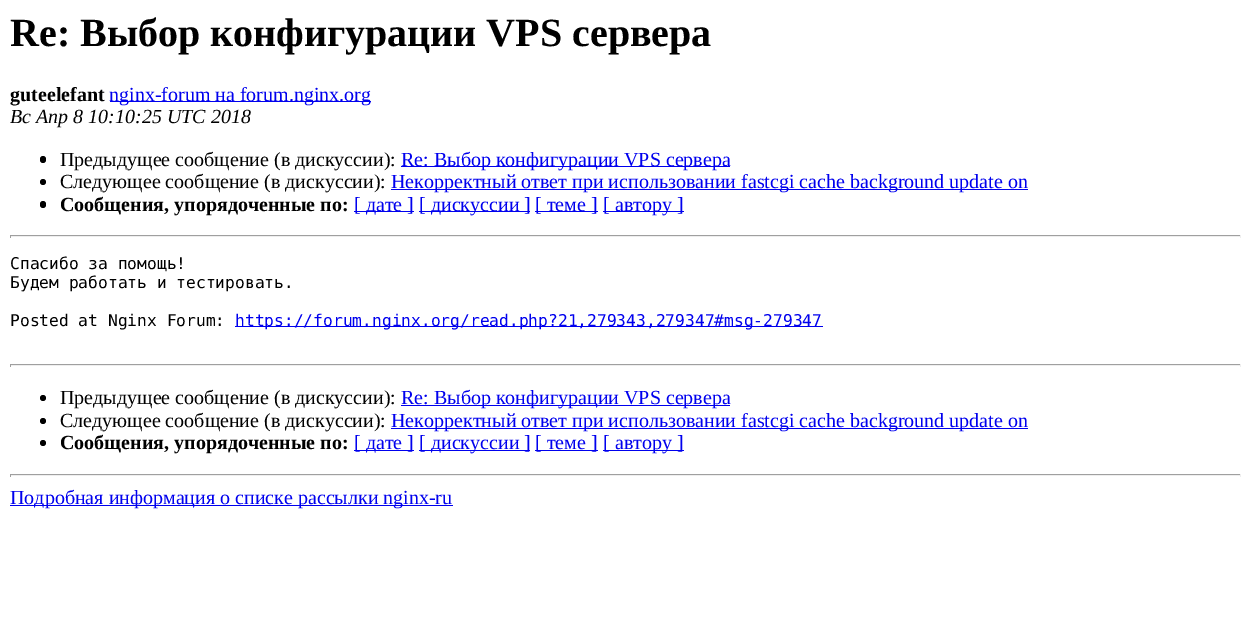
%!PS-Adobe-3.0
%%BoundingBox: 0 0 1251 620
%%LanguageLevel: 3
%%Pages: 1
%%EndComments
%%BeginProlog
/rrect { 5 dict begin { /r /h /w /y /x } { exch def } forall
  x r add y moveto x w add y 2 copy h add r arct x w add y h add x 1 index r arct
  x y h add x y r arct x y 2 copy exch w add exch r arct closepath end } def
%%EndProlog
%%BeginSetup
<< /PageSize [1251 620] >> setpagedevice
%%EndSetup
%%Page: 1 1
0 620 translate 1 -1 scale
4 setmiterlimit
1 setgray
0 0 1251 620 rectfill
0 0 0.933 setrgbcolor
110 101 261 1 rectfill
0 setgray
40 156 6 7 3 rrect fill
0 0 0.933 setrgbcolor
401 166 329 1 rectfill
0 setgray
newpath 43 182 3 0 360 arc closepath fill
0 0 0.933 setrgbcolor
391 189 637 1 rectfill
0 setgray
40 201 6 7 3 rrect fill
0 0 0.933 setrgbcolor
354 211 60 1 rectfill
419 211 111 1 rectfill
535 211 63 1 rectfill
603 211 81 1 rectfill
0.624 setgray
10 235 1231 1 rectfill
0.933 setgray
1240 235 1 3 rectfill
10 236 1231 1 rectfill
0.624 setgray
10 235 1 3 rectfill
0 0 0.933 setrgbcolor
235 326 588 1 rectfill
0.624 setgray
10 364 1231 1 rectfill
0.933 setgray
1240 364 1 3 rectfill
10 365 1231 1 rectfill
0.624 setgray
10 364 1 3 rectfill
0 setgray
newpath 43 398 3 0 360 arc closepath fill
0 0 0.933 setrgbcolor
401 405 329 1 rectfill
0 setgray
newpath 43 421 3 0 360 arc closepath fill
0 0 0.933 setrgbcolor
391 428 637 1 rectfill
0 setgray
newpath 43 443 3 0 360 arc closepath fill
0 0 0.933 setrgbcolor
354 450 60 1 rectfill
419 450 111 1 rectfill
535 450 63 1 rectfill
603 450 81 1 rectfill
0.624 setgray
10 474 1231 1 rectfill
0.933 setgray
1240 474 1 3 rectfill
10 475 1231 1 rectfill
0.624 setgray
10 474 1 3 rectfill
0 0 0.933 setrgbcolor
10 505 443 1 rectfill
/LiberationSerif-Bold [40 0 0 -40 0 0] selectfont
0 setgray
10 46 moveto (Re: Выбор конфигурации VPS сервера) show
/LiberationSerif-Bold [20 0 0 -20 0 0] selectfont
10 101 moveto (guteelefant) show
/LiberationSerif-Regular [20 0 0 -20 0 0] selectfont
0 0 0.933 setrgbcolor
109 101 moveto (nginx-forum на forum.nginx.org) show
/LiberationSerif-Italic [20 0 0 -20 0 0] selectfont
0 setgray
10 123 moveto (Вс Апр 8 10:10:25 UTC 2018) show
/LiberationSerif-Regular [20 0 0 -20 0 0] selectfont
60 166 moveto (Предыдущее сообщение \(в дискуссии\):) show
0 0 0.933 setrgbcolor
401 166 moveto (Re: Выбор конфигурации VPS сервера) show
0 setgray
60 188 moveto (Следующее сообщение \(в дискуссии\):) show
0 0 0.933 setrgbcolor
391 188 moveto (Некорректный ответ при использовании fastcgi cache background update on) show
/LiberationSerif-Bold [20 0 0 -20 0 0] selectfont
0 setgray
60 211 moveto (Сообщения, упорядоченные по:) show
/LiberationSerif-Regular [20 0 0 -20 0 0] selectfont
0 0 0.933 setrgbcolor
354 211 moveto ([ дате ]) show
419 211 moveto ([ дискуссии ]) show
535 211 moveto ([ теме ]) show
603 211 moveto ([ автору ]) show
/DejaVuSansMono-Regular [16.25 0 0 -16.25 0 0] selectfont
0 setgray
10 269 moveto (Спасибо за помощь!) show
10 288 moveto (Будем работать и тестировать.) show
10 326 moveto (Posted at Nginx Forum:) show
0 0 0.933 setrgbcolor
235 326 moveto (https://forum.nginx.org/read.php?21,279343,279347#msg-279347) show
/LiberationSerif-Regular [20 0 0 -20 0 0] selectfont
0 setgray
60 404 moveto (Предыдущее сообщение \(в дискуссии\):) show
0 0 0.933 setrgbcolor
401 404 moveto (Re: Выбор конфигурации VPS сервера) show
0 setgray
60 427 moveto (Следующее сообщение \(в дискуссии\):) show
0 0 0.933 setrgbcolor
391 427 moveto (Некорректный ответ при использовании fastcgi cache background update on) show
/LiberationSerif-Bold [20 0 0 -20 0 0] selectfont
0 setgray
60 449 moveto (Сообщения, упорядоченные по:) show
/LiberationSerif-Regular [20 0 0 -20 0 0] selectfont
0 0 0.933 setrgbcolor
354 449 moveto ([ дате ]) show
419 449 moveto ([ дискуссии ]) show
535 449 moveto ([ теме ]) show
603 449 moveto ([ автору ]) show
10 504 moveto (Подробная информация о списке рассылки nginx-ru) show
showpage
%%EOF
